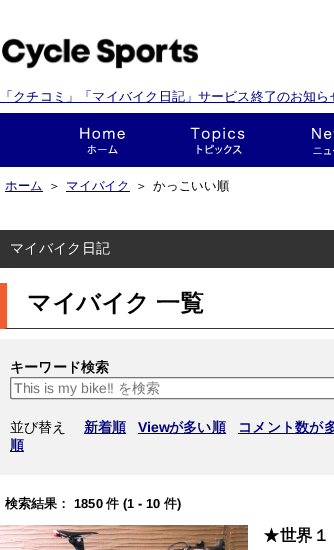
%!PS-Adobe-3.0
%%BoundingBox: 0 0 334 550
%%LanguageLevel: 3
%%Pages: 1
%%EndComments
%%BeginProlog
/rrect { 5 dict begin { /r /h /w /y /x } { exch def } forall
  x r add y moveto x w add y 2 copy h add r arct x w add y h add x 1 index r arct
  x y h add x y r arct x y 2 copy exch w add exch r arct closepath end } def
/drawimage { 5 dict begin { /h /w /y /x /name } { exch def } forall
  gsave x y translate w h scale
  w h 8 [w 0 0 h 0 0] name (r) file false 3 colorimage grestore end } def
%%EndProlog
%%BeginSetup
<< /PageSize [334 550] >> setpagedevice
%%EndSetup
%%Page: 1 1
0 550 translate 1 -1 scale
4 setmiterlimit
1 setgray
0 0 334 550 rectfill
(images/1.raw) 2 38 197 31 drawimage
0 0 0.502 setrgbcolor
0 102 334 1 rectfill
0 113 334 54 rectfill
(images/2.raw) 80 127 45 27 drawimage
(images/3.raw) 190 127 55 27 drawimage
(images/4.raw) 312 128 22 27 drawimage
5 191 38 1 rectfill
66 191 64 1 rectfill
0.2 setgray
0 230 334 38 rectfill
newpath 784 329 moveto 0 329 lineto 7 328 lineto 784 328 lineto closepath fill
0.945 0.365 0.188 setrgbcolor
newpath 0 329 moveto 0 283 lineto 7 283 lineto 7 328 lineto closepath fill
0.949 setgray
0 339 334 136 rectfill
1 setgray
10.5 377.5 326 21 1.5 rrect gsave fill grestore
0.463 setgray
stroke
0 0 0.502 setrgbcolor
84 433 42 1 rectfill
138 433 88 1 rectfill
238 433 96 1 rectfill
10 451 14 1 rectfill
(images/5.raw) 0 525 248 25 drawimage
/WenQuanYiZenHei-Medium [13 0 0 -13 0 0] selectfont
0 101 moveto (「クチコミ」「マイバイク日記」サービス終了のお知らせ) show
/WenQuanYiZenHei-Medium [12.5 0 0 -12.5 0 0] selectfont
5 190 moveto (ホーム) show
0 setgray
48 190 moveto (＞) show
0 0 0.502 setrgbcolor
66 190 moveto (マイバイク) show
0 setgray
135 190 moveto (＞) show
153 190 moveto (かっこいい順) show
/WenQuanYiZenHei-Medium [14 0 0 -14 0 0] selectfont
1 setgray
10 253 moveto (マイバイク日記) show
/WenQuanYiZenHei-Bold [24 0 0 -24 0 0] selectfont
0 setgray
27 311 moveto -1 0 32 (マイバイク 一覧) widthshow
/WenQuanYiZenHei-Bold [14 0 0 -14 0 0] selectfont
10 372 moveto (キーワード検索) show
/LiberationSans-Regular [14 0 0 -14 0 0] selectfont
0.459 setgray
14 393 moveto (This is my bike!!) show
/WenQuanYiZenHei-Medium [14 0 0 -14 0 0] selectfont
118 393 moveto (を検索) show
0 setgray
10 432 moveto (並び替え) show
/WenQuanYiZenHei-Bold [14 0 0 -14 0 0] selectfont
0 0 0.502 setrgbcolor
84 432 moveto (新着順) show
/LiberationSans-Bold [14 0 0 -14 0 0] selectfont
138 432 moveto (View) show
/WenQuanYiZenHei-Bold [14 0 0 -14 0 0] selectfont
169 432 moveto (が多い順) show
238 432 moveto (コメント数が多) show
10 450 moveto (順) show
/WenQuanYiZenHei-Bold [13 0 0 -13 0 0] selectfont
0 setgray
5 508 moveto (検索結果：) show
/LiberationSans-Bold [13 0 0 -13 0 0] selectfont
74 508 moveto (1850) show
/WenQuanYiZenHei-Bold [13 0 0 -13 0 0] selectfont
106 508 moveto (件) show
/LiberationSans-Bold [13 0 0 -13 0 0] selectfont
123 508 moveto (\(1 - 10) show
/WenQuanYiZenHei-Bold [13 0 0 -13 0 0] selectfont
164 508 moveto (件) show
/LiberationSans-Bold [13 0 0 -13 0 0] selectfont
177 508 moveto (\)) show
/WenQuanYiZenHei-Bold [16.5 0 0 -16.5 0 0] selectfont
263 541 moveto (★世界１) show
showpage
%%EOF
